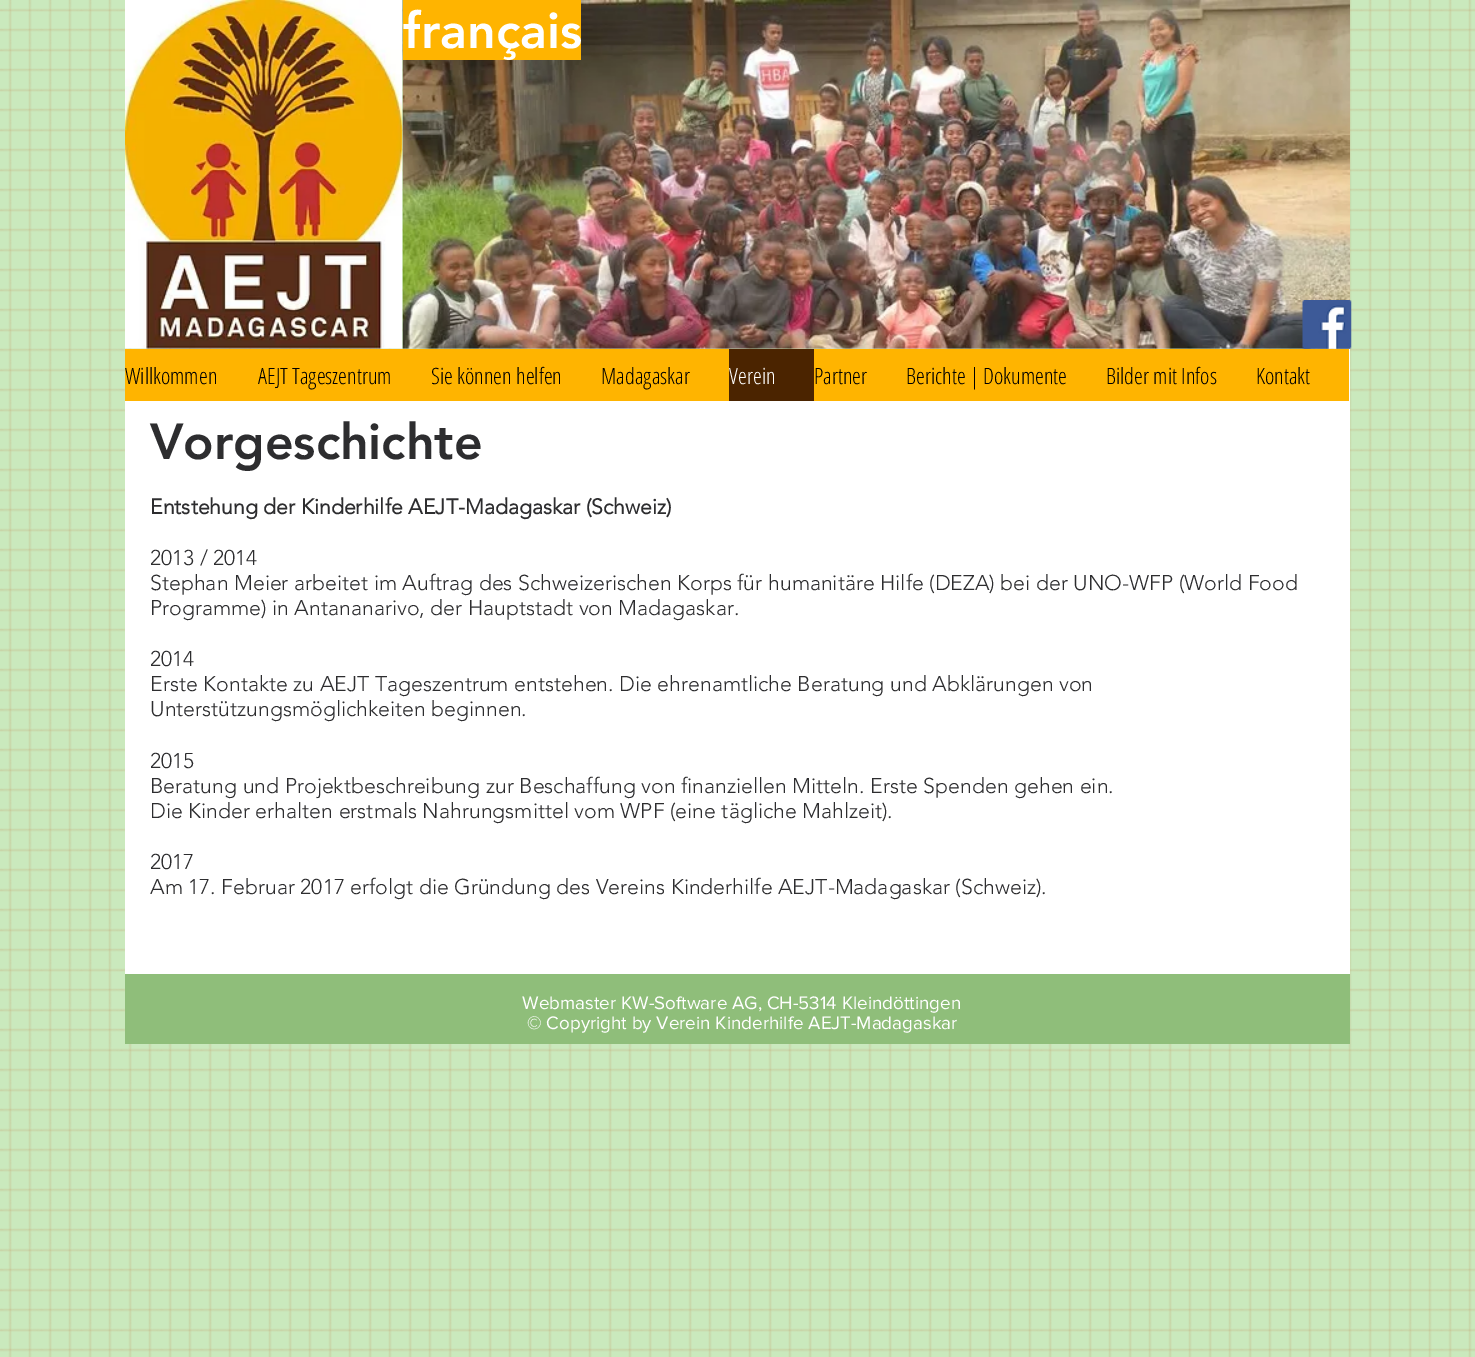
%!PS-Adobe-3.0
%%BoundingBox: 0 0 1475 1357
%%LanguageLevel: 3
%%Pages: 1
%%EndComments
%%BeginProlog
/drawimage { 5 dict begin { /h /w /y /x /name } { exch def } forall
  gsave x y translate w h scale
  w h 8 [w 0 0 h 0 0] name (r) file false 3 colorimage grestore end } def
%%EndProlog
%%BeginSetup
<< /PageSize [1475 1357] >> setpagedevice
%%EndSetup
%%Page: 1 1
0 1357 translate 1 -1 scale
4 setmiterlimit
0.792 0.914 0.741 setrgbcolor
0 0 1475 1357 rectfill
(images/1.raw) 0 0 1475 1357 drawimage
(images/2.raw) 125 0 278 349 drawimage
(images/3.raw) 402 0 948 349 drawimage
1 0.706 0 setrgbcolor
403 0 178 60 rectfill
(images/4.raw) 1302 300 50 49 drawimage
1 setgray
125 349 1225 625 rectfill
1 0.706 0 setrgbcolor
125 349 604 52 rectfill
0.294 0.141 0 setrgbcolor
729 349 85 52 rectfill
1 0.706 0 setrgbcolor
814 349 535 52 rectfill
0.561 0.745 0.478 setrgbcolor
125 974 1225 70 rectfill
/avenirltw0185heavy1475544-Black [50 0 0 -50 0 0] selectfont
1 setgray
403 48 moveto (français) show
/OpenSansCondensed-Light [22.5 0 0 -22.5 0 0] selectfont
0 setgray
125 384 moveto (Willkommen) show
258 384 moveto (AEJT Tageszentrum) show
431 384 moveto (Sie können helfen) show
601 384 moveto (Madagaskar) show
1 setgray
729 384 moveto (Verein) show
0 setgray
814 384 moveto (Partner) show
906 384 moveto (Berichte | Dokumente) show
1106 384 moveto (Bilder mit Infos) show
1256 384 moveto (Kontakt) show
/avenirltw0185heavy1475544-Black [50 0 0 -50 0 0] selectfont
0.176 0.176 0.184 setrgbcolor
150 459 moveto (Vorgeschichte) show
/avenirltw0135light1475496-Bold [21.25 0 0 -21.25 0 0] selectfont
150 514 moveto (Entstehung der Kinderhilfe AEJT-Madagaskar \(Schweiz\)) show
/avenirltw0135light1475496-Light [21.25 0 0 -21.25 0 0] selectfont
150 565 moveto (2013 / 2014) show
150 590 moveto (Stephan Meier arbeitet im Auftrag des Schweizerischen Korps für humanitäre Hilfe \(DEZA\) bei der UNO-WFP \(World Food) show
150 615 moveto (Programme\) in Antananarivo, der Hauptstadt von Madagaskar.) show
150 666 moveto (2014) show
150 691 moveto (Erste Kontakte zu AEJT Tageszentrum entstehen. Die ehrenamtliche Beratung und Abklärungen von) show
150 716 moveto (Unterstützungsmöglichkeiten beginnen.) show
150 768 moveto (2015) show
150 793 moveto (Beratung und Projektbeschreibung zur Beschaffung von finanziellen Mitteln. Erste Spenden gehen ein.) show
150 818 moveto (Die Kinder erhalten erstmals Nahrungsmittel vom WPF \(eine tägliche Mahlzeit\).) show
150 869 moveto (2017) show
150 894 moveto (Am 17. Februar 2017 erfolgt die Gründung des Vereins Kinderhilfe AEJT-Madagaskar \(Schweiz\).) show
/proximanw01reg-Regular [18.75 0 0 -18.75 0 0] selectfont
1 setgray
522 1009 moveto (Webmaster KW-Software AG, CH-5314 Kleindöttingen) show
527 1029 moveto (© Copyright by Verein Kinderhilfe AEJT-Madagaskar) show
showpage
%%EOF
